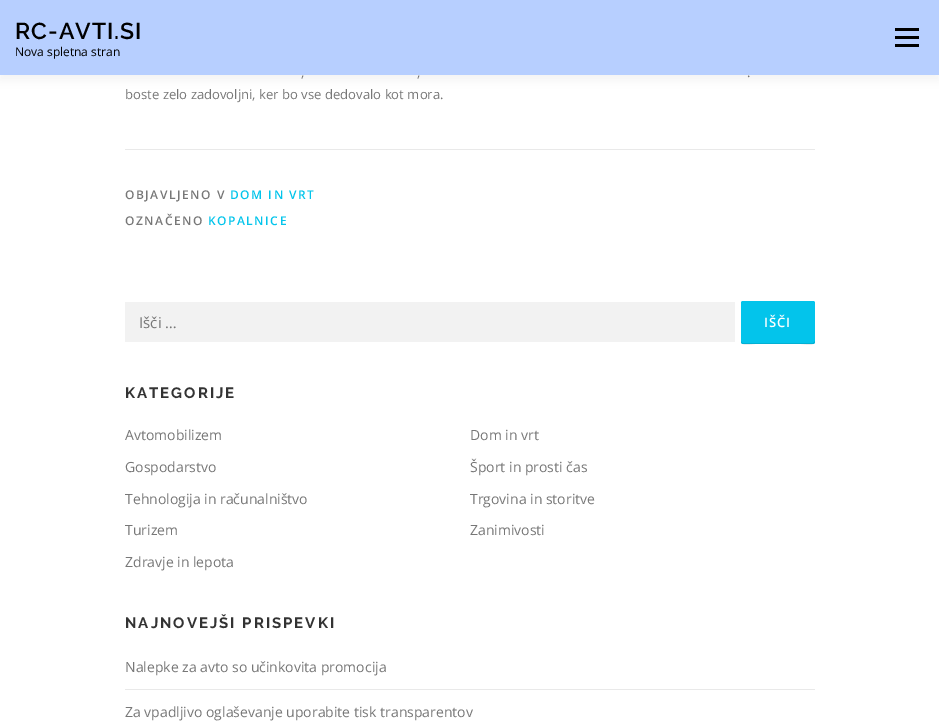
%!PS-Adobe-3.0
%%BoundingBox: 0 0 939 723
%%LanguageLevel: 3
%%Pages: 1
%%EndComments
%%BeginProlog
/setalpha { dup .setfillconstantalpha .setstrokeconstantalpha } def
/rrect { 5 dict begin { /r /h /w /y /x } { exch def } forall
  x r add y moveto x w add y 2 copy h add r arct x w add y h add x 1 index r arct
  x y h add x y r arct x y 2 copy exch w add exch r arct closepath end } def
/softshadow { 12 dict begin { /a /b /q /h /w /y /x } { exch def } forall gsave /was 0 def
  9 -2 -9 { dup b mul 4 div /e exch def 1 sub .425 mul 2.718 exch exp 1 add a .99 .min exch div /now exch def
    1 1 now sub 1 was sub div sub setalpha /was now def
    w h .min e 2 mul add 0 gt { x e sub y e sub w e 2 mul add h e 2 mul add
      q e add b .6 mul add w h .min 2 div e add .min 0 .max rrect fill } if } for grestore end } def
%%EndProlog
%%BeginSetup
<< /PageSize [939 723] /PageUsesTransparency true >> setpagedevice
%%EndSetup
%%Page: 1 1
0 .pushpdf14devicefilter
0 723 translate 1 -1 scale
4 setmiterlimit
1 setgray
0 0 939 723 rectfill
0.196 setgray
0 5 939 75 0 5 0.06 softshadow
0.718 0.812 1 setrgbcolor
0 0 939 75 rectfill
0 setgray
895 36 24 3 rectfill
895 28 24 3 rectfill
895 44 24 3 rectfill
0.914 setgray
125 149 690 1 rectfill
0.949 setgray
125 302 610 40 rectfill
0.012 0.769 0.922 setrgbcolor
741 301 74 43 2 rrect fill
0.1 setalpha
0 setgray
newpath 741 341 moveto 741 347 751 344 755 344 curveto 801 344 lineto 805 344 815 347 815 341 curveto 814 342 lineto 813 343 lineto 743 343 lineto 742 343 741 342 741 341 curveto closepath fill
1 setalpha
0.914 setgray
125 689 690 1 rectfill
/Raleway-SemiBold [23 0 0 -23 0 0] selectfont
0 setgray
15 39 moveto 1 0 (RC-AVTI.SI) ashow
/OpenSans-Regular [12 0 0 -12 0 0] selectfont
15 56 moveto (Nova spletna stran) show
/OpenSans-Regular [13.1 0 0 -13.1 0 0] selectfont
0.467 setgray
301 77 moveto (,) show
417 77 moveto (,) show
747 77 moveto (.) show
125 99 moveto (boste zelo zadovoljni, ker bo vse dedovalo kot mora.) show
/OpenSans-SemiBold [12 0 0 -12 0 0] selectfont
125 199 moveto 1.5 0 (OBJAVLJENO V) ashow
0.012 0.769 0.922 setrgbcolor
230 199 moveto 1.5 0 (DOM IN VRT) ashow
0.467 setgray
125 225 moveto 1.5 0 (OZNAČENO) ashow
0.012 0.769 0.922 setrgbcolor
208 225 moveto 1.5 0 (KOPALNICE) ashow
/OpenSans-Regular [15 0 0 -15 0 0] selectfont
0.467 setgray
139 328 moveto (Išči …) show
/OpenSans-SemiBold [13 0 0 -13 0 0] selectfont
1 setgray
764 327 moveto 1 0 (IŠČI) ashow
/Raleway-Bold [15 0 0 -15 0 0] selectfont
0.2 setgray
125 398 moveto 2 0 (KATEGORIJE) ashow
/OpenSans-Regular [14 0 0 -14 0 0] selectfont
0.467 setgray
125 440 moveto (Avtomobilizem) show
470 440 moveto (Dom in vrt) show
125 472 moveto (Gospodarstvo) show
470 472 moveto (Šport in prosti čas) show
125 504 moveto (Tehnologija in računalništvo) show
470 504 moveto (Trgovina in storitve) show
125 535 moveto (Turizem) show
470 535 moveto (Zanimivosti) show
125 567 moveto (Zdravje in lepota) show
/Raleway-Bold [15 0 0 -15 0 0] selectfont
0.2 setgray
125 628 moveto 2 0 (NAJNOVEJŠI PRISPEVKI) ashow
/OpenSans-Regular [14 0 0 -14 0 0] selectfont
0.467 setgray
125 672 moveto (Nalepke za avto so učinkovita promocija) show
125 717 moveto (Za vpadljivo oglaševanje uporabite tisk transparentov) show
.poppdf14devicefilter showpage
%%EOF
